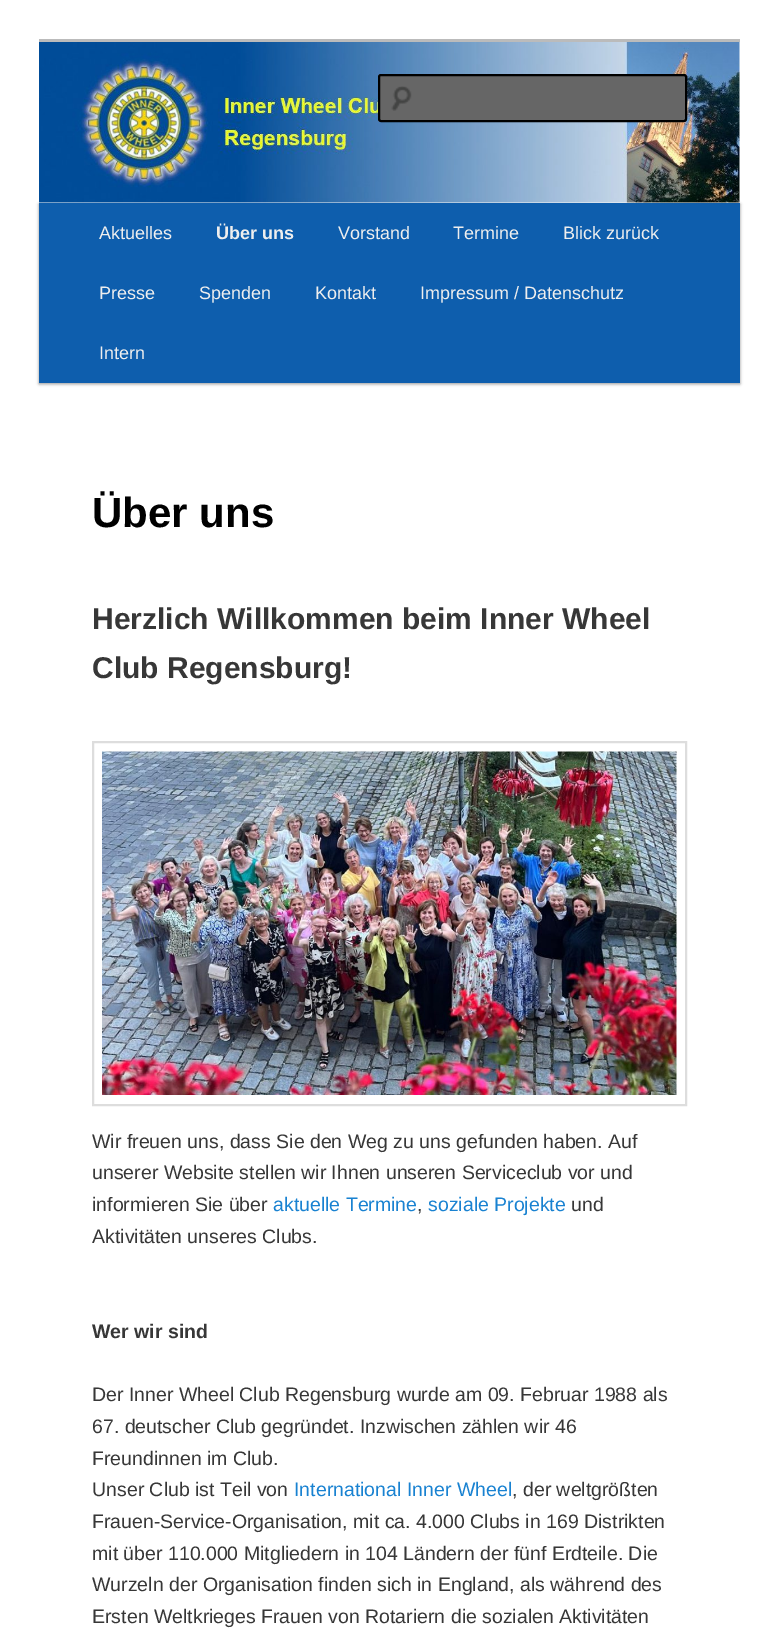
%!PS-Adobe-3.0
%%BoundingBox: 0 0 778 1638
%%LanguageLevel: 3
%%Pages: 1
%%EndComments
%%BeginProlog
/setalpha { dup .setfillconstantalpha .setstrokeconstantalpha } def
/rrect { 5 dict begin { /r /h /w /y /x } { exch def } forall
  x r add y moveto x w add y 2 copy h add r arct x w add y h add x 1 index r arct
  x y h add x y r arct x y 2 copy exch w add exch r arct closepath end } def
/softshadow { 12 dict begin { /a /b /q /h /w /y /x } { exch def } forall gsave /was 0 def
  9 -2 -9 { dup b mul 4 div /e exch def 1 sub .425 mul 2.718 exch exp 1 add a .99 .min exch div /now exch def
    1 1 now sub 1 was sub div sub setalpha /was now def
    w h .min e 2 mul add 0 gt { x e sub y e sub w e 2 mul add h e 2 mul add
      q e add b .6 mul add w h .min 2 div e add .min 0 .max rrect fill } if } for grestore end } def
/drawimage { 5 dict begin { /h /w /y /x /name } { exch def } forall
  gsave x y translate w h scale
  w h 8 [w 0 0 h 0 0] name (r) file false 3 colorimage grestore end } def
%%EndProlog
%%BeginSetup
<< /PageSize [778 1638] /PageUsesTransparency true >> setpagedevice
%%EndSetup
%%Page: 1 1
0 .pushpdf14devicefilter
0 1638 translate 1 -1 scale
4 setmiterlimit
1 setgray
0 0 778 1638 rectfill
0.733 setgray
39 39 701 3 rectfill
0 setgray
39 204 701 180 0 1.5 0.4 softshadow
(images/1.raw) 39 42 701 161 drawimage
0.4 setgray
378 74 309 48 3 rrect fill
(images/2.raw) 391 86 21 25 drawimage
0 setgray
2 setlinewidth
379 75 307 46 2 rrect stroke
0.055 0.369 0.678 setrgbcolor
39 203 701 180 rectfill
0.867 setgray
93 742 593 363 rectstroke
(images/3.raw) 102 751 575 344 drawimage
/LiberationSans-Regular [18 0 0 -18 0 0] selectfont
0.933 setgray
99 239 moveto (Aktuelles) show
/LiberationSans-Bold [18 0 0 -18 0 0] selectfont
216 239 moveto (Über uns) show
/LiberationSans-Regular [18 0 0 -18 0 0] selectfont
338 239 moveto (Vorstand) show
453 239 moveto (Termine) show
563 239 moveto (Blick zurück) show
99 299 moveto (Presse) show
199 299 moveto (Spenden) show
315 299 moveto (Kontakt) show
420 299 moveto (Impressum / Datenschutz) show
99 359 moveto (Intern) show
/LiberationSans-Bold [42 0 0 -42 0 0] selectfont
0 setgray
92 527 moveto (Über uns) show
/LiberationSans-Bold [30 0 0 -30 0 0] selectfont
0.216 setgray
92 629 moveto (Herzlich Willkommen beim Inner Wheel) show
92 678 moveto (Club Regensburg!) show
/LiberationSans-Regular [19.5 0 0 -19.5 0 0] selectfont
92 1148 moveto (Wir freuen uns, dass Sie den Weg zu uns gefunden haben. Auf) show
92 1179 moveto (unserer Website stellen wir Ihnen unseren Serviceclub vor und) show
92 1211 moveto (informieren Sie über) show
0.098 0.51 0.82 setrgbcolor
273 1211 moveto (aktuelle Termine) show
0.216 setgray
417 1211 moveto (,) show
0.098 0.51 0.82 setrgbcolor
428 1211 moveto (soziale Projekte) show
0.216 setgray
571 1211 moveto (und) show
92 1243 moveto (Aktivitäten unseres Clubs.) show
/LiberationSans-Bold [19.5 0 0 -19.5 0 0] selectfont
92 1338 moveto (Wer wir sind) show
/LiberationSans-Regular [19.5 0 0 -19.5 0 0] selectfont
92 1401 moveto (Der Inner Wheel Club Regensburg wurde am 09. Februar 1988 als) show
92 1433 moveto (67. deutscher Club gegründet. Inzwischen zählen wir 46) show
92 1465 moveto (Freundinnen im Club.) show
92 1496 moveto (Unser Club ist Teil von) show
0.098 0.51 0.82 setrgbcolor
294 1496 moveto (International Inner Wheel) show
0.216 setgray
512 1496 moveto (, der weltgrößten) show
92 1528 moveto (Frauen-Service-Organisation, mit ca. 4.000 Clubs in 169 Distrikten) show
92 1560 moveto (mit über 110.000 Mitgliedern in 104 Ländern der fünf Erdteile. Die) show
92 1591 moveto (Wurzeln der Organisation finden sich in England, als während des) show
92 1623 moveto (Ersten Weltkrieges Frauen von Rotariern die sozialen Aktivitäten) show
.poppdf14devicefilter showpage
%%EOF
